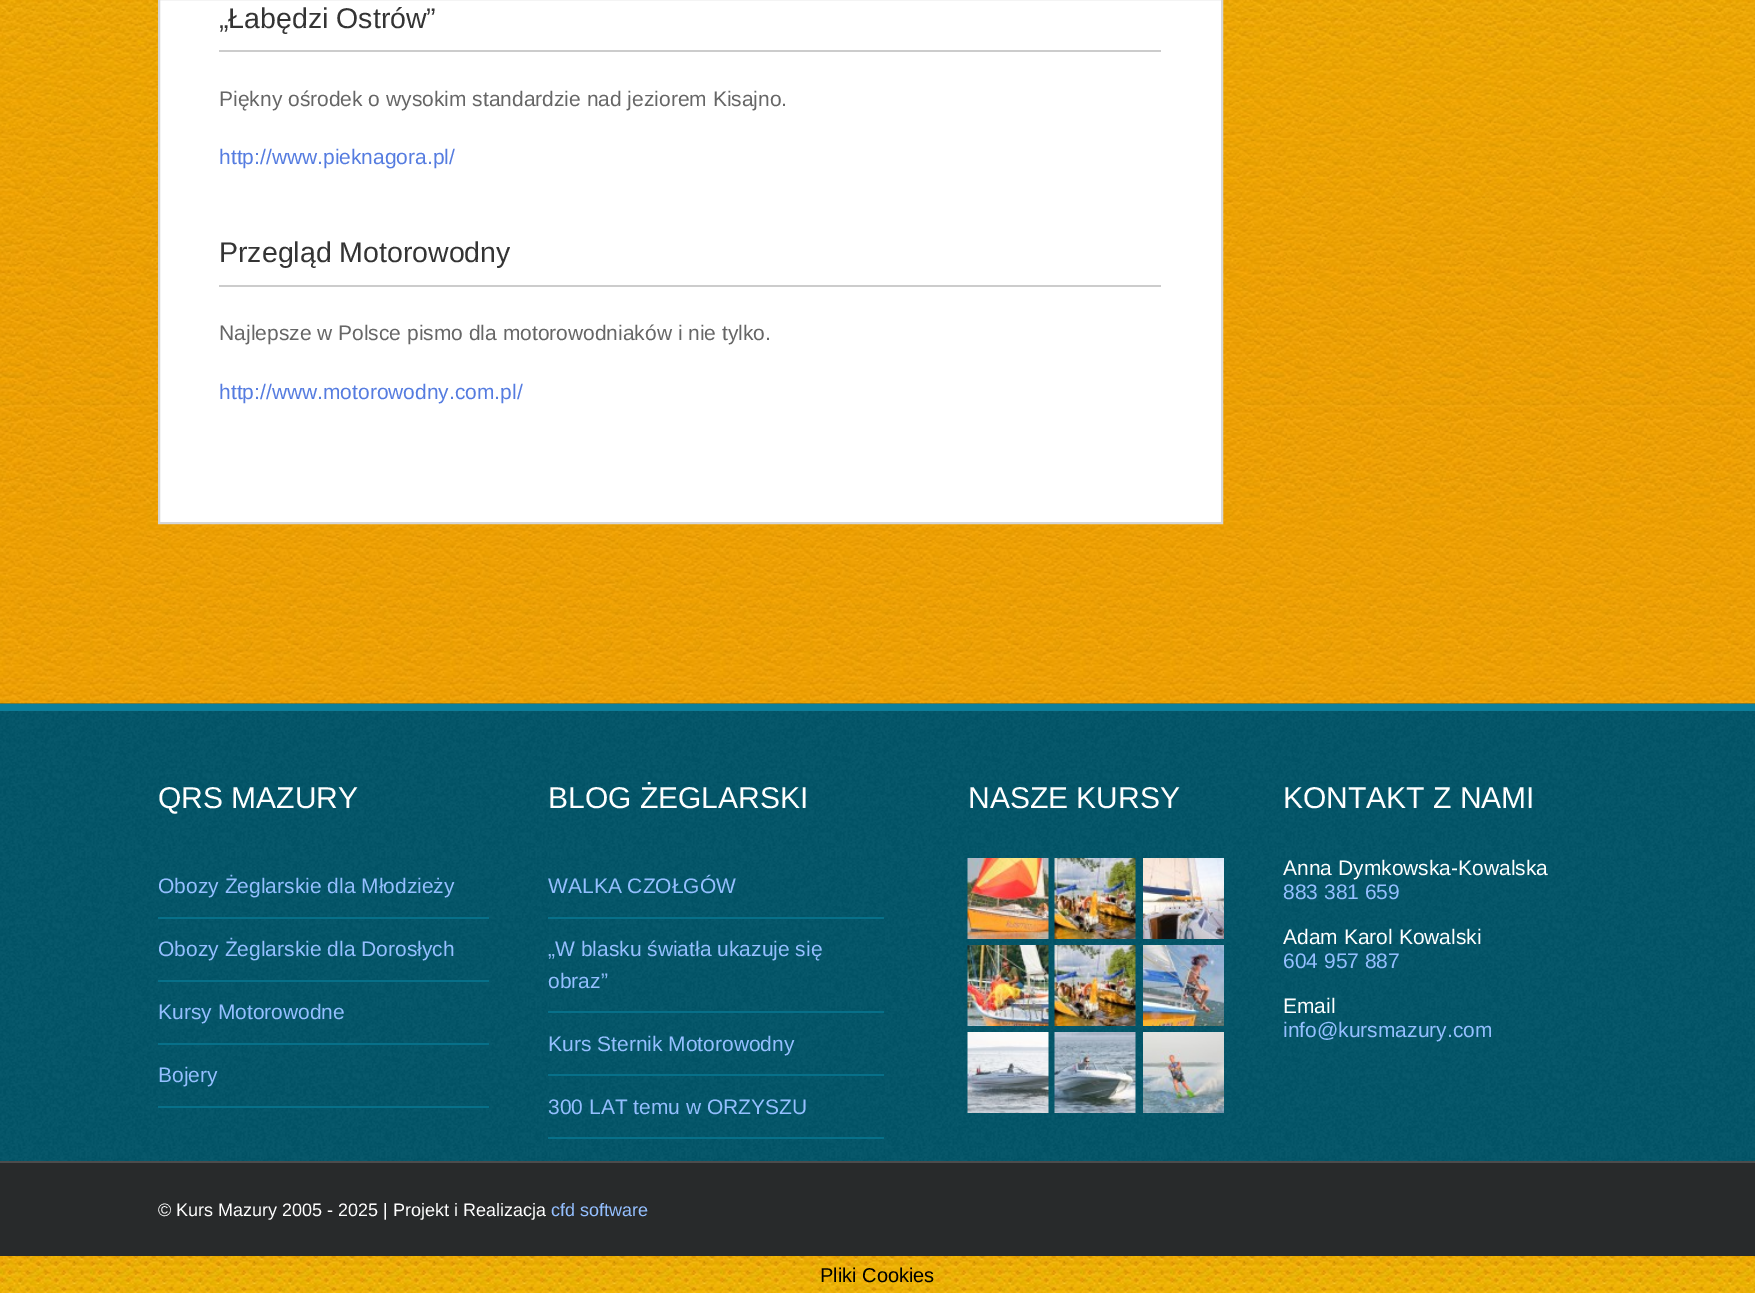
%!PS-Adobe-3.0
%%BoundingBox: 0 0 1755 1293
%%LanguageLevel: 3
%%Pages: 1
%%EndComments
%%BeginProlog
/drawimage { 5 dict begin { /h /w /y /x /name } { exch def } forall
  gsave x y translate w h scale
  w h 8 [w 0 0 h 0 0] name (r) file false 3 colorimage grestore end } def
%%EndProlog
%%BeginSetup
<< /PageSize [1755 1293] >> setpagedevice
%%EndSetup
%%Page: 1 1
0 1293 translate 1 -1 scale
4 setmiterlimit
1 setgray
0 0 1755 1293 rectfill
(images/1.raw) 0 0 1755 1293 drawimage
newpath 159 -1 moveto 1222 -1 lineto 1222 523 lineto 159 523 lineto closepath gsave fill grestore
0.843 setgray
2 setlinewidth
stroke
0.8 setgray
219 50 942 2 rectfill
219 285 942 2 rectfill
(images/2.raw) 0 703 1755 458 drawimage
0.047 0.498 0.608 setrgbcolor
0 704 1755 7 rectfill
0.027 0.439 0.537 setrgbcolor
158 917 331 2 rectfill
158 980 331 2 rectfill
158 1043 331 2 rectfill
158 1106 331 2 rectfill
548 917 336 2 rectfill
548 1011 336 2 rectfill
548 1074 336 2 rectfill
548 1137 336 2 rectfill
(images/3.raw) 967 858 82 81 drawimage
(images/4.raw) 1054 858 82 81 drawimage
(images/5.raw) 1143 858 81 81 drawimage
(images/6.raw) 967 945 82 81 drawimage
(images/7.raw) 1054 945 82 81 drawimage
(images/8.raw) 1143 945 81 81 drawimage
(images/9.raw) 967 1032 82 81 drawimage
(images/10.raw) 1054 1032 82 81 drawimage
(images/11.raw) 1143 1032 81 81 drawimage
0.157 0.165 0.169 setrgbcolor
0 1163 1755 93 rectfill
0.294 0.298 0.302 setrgbcolor
0 1161 1755 2 rectfill
/LiberationSans-Regular [28.5 0 0 -28.5 0 0] selectfont
0.204 setgray
219 28 moveto („Łabędzi Ostrów”) show
/LiberationSans-Regular [21 0 0 -21 0 0] selectfont
0.4 setgray
219 106 moveto (Piękny ośrodek o wysokim standardzie nad jeziorem Kisajno.) show
0.333 0.486 0.878 setrgbcolor
219 164 moveto (http://www.pieknagora.pl/) show
/LiberationSans-Regular [28.5 0 0 -28.5 0 0] selectfont
0.204 setgray
219 262 moveto (Przegląd Motorowodny) show
/LiberationSans-Regular [21 0 0 -21 0 0] selectfont
0.4 setgray
219 340 moveto (Najlepsze w Polsce pismo dla motorowodniaków i nie tylko.) show
0.333 0.486 0.878 setrgbcolor
219 399 moveto (http://www.motorowodny.com.pl/) show
/LiberationSans-Regular [30 0 0 -30 0 0] selectfont
1 setgray
158 808 moveto (QRS MAZURY) show
/LiberationSans-Regular [21 0 0 -21 0 0] selectfont
0.58 0.749 1 setrgbcolor
158 893 moveto (Obozy Żeglarskie dla Młodzieży) show
158 956 moveto (Obozy Żeglarskie dla Dorosłych) show
158 1019 moveto (Kursy Motorowodne) show
158 1082 moveto (Bojery) show
/LiberationSans-Regular [30 0 0 -30 0 0] selectfont
1 setgray
548 808 moveto (BLOG ŻEGLARSKI) show
/LiberationSans-Regular [21 0 0 -21 0 0] selectfont
0.58 0.749 1 setrgbcolor
548 893 moveto (WALKA CZOŁGÓW) show
548 956 moveto („W blasku światła ukazuje się) show
548 988 moveto (obraz”) show
548 1051 moveto (Kurs Sternik Motorowodny) show
548 1114 moveto (300 LAT temu w ORZYSZU) show
/LiberationSans-Regular [30 0 0 -30 0 0] selectfont
1 setgray
968 808 moveto (NASZE KURSY) show
1283 808 moveto (KONTAKT Z NAMI) show
/LiberationSans-Regular [21 0 0 -21 0 0] selectfont
1283 875 moveto (Anna Dymkowska-Kowalska) show
0.58 0.749 1 setrgbcolor
1283 899 moveto (883 381 659) show
1 setgray
1283 944 moveto (Adam Karol Kowalski) show
0.58 0.749 1 setrgbcolor
1283 968 moveto (604 957 887) show
1 setgray
1283 1013 moveto (Email) show
0.58 0.749 1 setrgbcolor
1283 1037 moveto (info@kursmazury.com) show
/LiberationSans-Regular [18 0 0 -18 0 0] selectfont
1 setgray
158 1216 moveto (© Kurs Mazury 2005 - 2025 | Projekt i Realizacja) show
0.58 0.749 1 setrgbcolor
551 1216 moveto (cfd software) show
/LiberationSans-Regular [20 0 0 -20 0 0] selectfont
0 setgray
820 1282 moveto (Pliki Cookies) show
showpage
%%EOF
